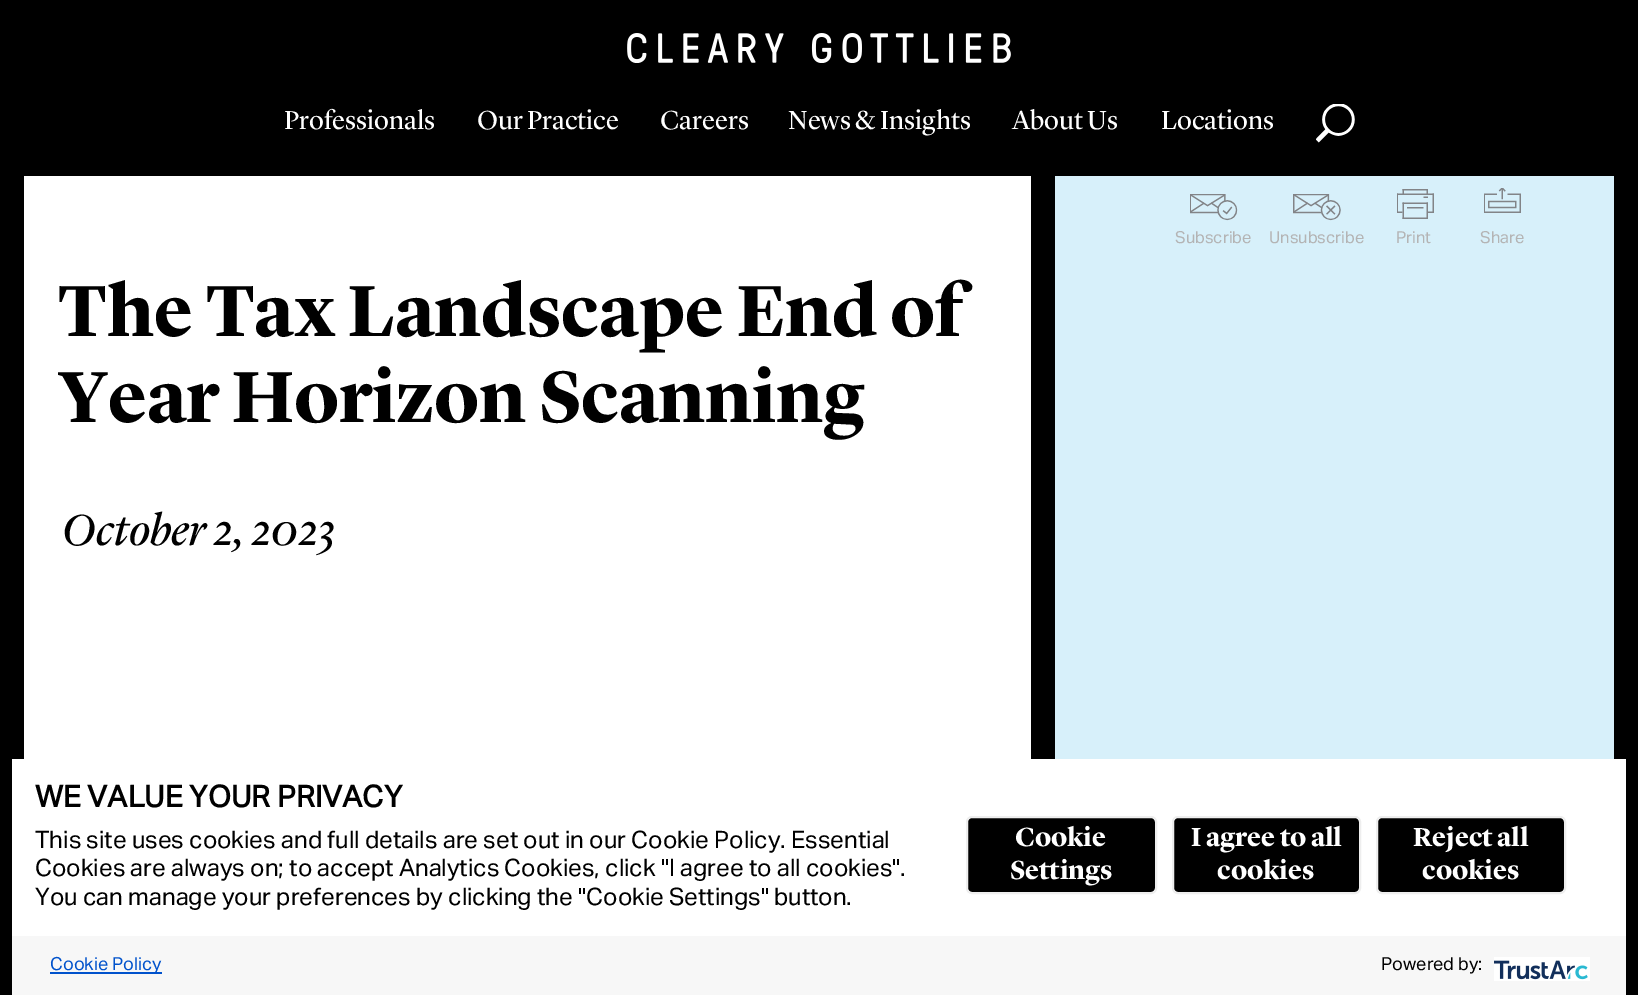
%!PS-Adobe-3.0
%%BoundingBox: 0 0 1638 995
%%LanguageLevel: 3
%%Pages: 1
%%EndComments
%%BeginProlog
/rrect { 5 dict begin { /r /h /w /y /x } { exch def } forall
  x r add y moveto x w add y 2 copy h add r arct x w add y h add x 1 index r arct
  x y h add x y r arct x y 2 copy exch w add exch r arct closepath end } def
/drawimage { 5 dict begin { /h /w /y /x /name } { exch def } forall
  gsave x y translate w h scale
  w h 8 [w 0 0 h 0 0] name (r) file false 3 colorimage grestore end } def
%%EndProlog
%%BeginSetup
<< /PageSize [1638 995] >> setpagedevice
%%EndSetup
%%Page: 1 1
0 995 translate 1 -1 scale
4 setmiterlimit
0 setgray
0 0 1638 995 rectfill
(images/1.raw) 627 33 384 30 drawimage
(images/2.raw) 1316 104 39 39 drawimage
0.843 0.941 0.98 setrgbcolor
1055 176 559 583 rectfill
1 setgray
24 176 1007 583 rectfill
(images/3.raw) 1190 194 48 27 drawimage
(images/4.raw) 1293 194 48 27 drawimage
(images/5.raw) 1397 189 37 30 drawimage
(images/6.raw) 1484 188 37 25 drawimage
12 759 1614 177 rectfill
0 setgray
967 817 189 76 5 rrect gsave fill grestore
0.933 setgray
2 setlinewidth
stroke
0 setgray
1173 817 187 76 5 rrect gsave fill grestore
0.933 setgray
stroke
0 setgray
1377 817 188 76 5 rrect gsave fill grestore
0.933 setgray
stroke
0.969 setgray
12 936 1614 59 rectfill
0 0.322 0.8 setrgbcolor
50 972 112 2 rectfill
(images/7.raw) 1494 957 96 24 drawimage
/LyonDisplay-Regular [27 0 0 -27 0 0] selectfont
1 setgray
284 129 moveto (Professionals) show
477 129 moveto (Our Practice) show
660 129 moveto (Careers) show
788 129 moveto (News & Insights) show
1012 129 moveto (About Us) show
1161 129 moveto (Locations) show
/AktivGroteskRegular-Regular [16.5 0 0 -16.5 0 0] selectfont
0.706 setgray
1175 243 moveto (Subscribe) show
1269 243 moveto (Unsubscribe) show
1396 243 moveto (Print) show
1480 243 moveto (Share) show
/LyonDisplay-Bold [75 0 0 -75 0 0] selectfont
0 setgray
58 336 moveto (The Tax Landscape End of) show
58 422 moveto (Year Horizon Scanning) show
/LyonDisplay-Italic [45 0 0 -45 0 0] selectfont
62 545 moveto (October 2, 2023) show
/AktivGroteskRegular-Bold [30 0 0 -30 0 0] selectfont
35 807 moveto (WE VALUE YOUR PRIVACY) show
/AktivGroteskRegular-Regular [24 0 0 -24 0 0] selectfont
35 848 moveto (This site uses cookies and full details are set out in our Cookie Policy. Essential) show
35 876 moveto (Cookies are always on; to accept Analytics Cookies, click "I agree to all cookies".) show
35 905 moveto (You can manage your preferences by clicking the "Cookie Settings" button.) show
/LyonDisplay-Bold [27 0 0 -27 0 0] selectfont
1 setgray
1015 846 moveto (Cookie) show
1010 879 moveto (Settings) show
1191 846 moveto (I agree to all) show
1217 879 moveto (cookies) show
1413 846 moveto (Reject all) show
1422 879 moveto (cookies) show
/AktivGroteskRegular-Regular [18 0 0 -18 0 0] selectfont
0 0.322 0.8 setrgbcolor
50 970 moveto (Cookie Policy) show
0 setgray
1381 970 moveto (Powered by:) show
showpage
%%EOF
